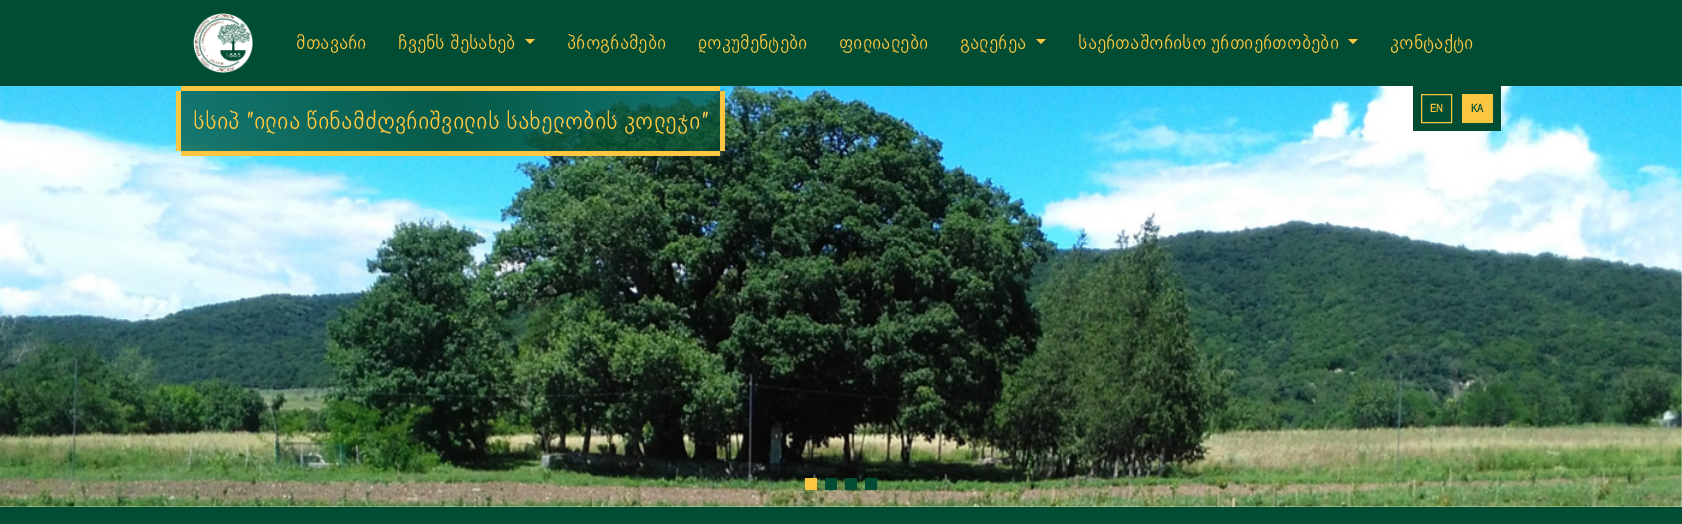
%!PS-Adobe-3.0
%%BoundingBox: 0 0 1682 524
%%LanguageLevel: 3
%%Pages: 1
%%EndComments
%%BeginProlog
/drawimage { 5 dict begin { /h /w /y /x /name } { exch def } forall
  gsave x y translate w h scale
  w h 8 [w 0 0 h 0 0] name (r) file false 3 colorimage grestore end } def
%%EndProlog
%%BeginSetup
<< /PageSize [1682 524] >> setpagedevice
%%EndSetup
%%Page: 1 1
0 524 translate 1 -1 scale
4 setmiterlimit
1 setgray
0 0 1682 524 rectfill
0 0.302 0.2 setrgbcolor
0 0 1682 86 rectfill
(images/1.raw) 193 13 60 60 drawimage
0.984 0.776 0.255 setrgbcolor
newpath 525 39 moveto 535 39 lineto 530 44 lineto closepath fill
newpath 1036 39 moveto 1046 39 lineto 1041 44 lineto closepath fill
newpath 1348 39 moveto 1358 39 lineto 1353 44 lineto closepath fill
(images/2.raw) 0 86 1682 421 drawimage
0 0.302 0.2 setrgbcolor
1413 86 88 45 rectfill
0.984 0.776 0.255 setrgbcolor
1421.5 94.5 30 28 rectstroke
1462 94 31 29 rectfill
720 91 5 60 rectfill
176 91 5 60 rectfill
181 86 539 5 rectfill
181 151 539 5 rectfill
805 478 12 12 rectfill
0 0.302 0.2 setrgbcolor
825 478 12 12 rectfill
845 478 12 12 rectfill
865 478 12 12 rectfill
0 507 1682 17 rectfill
/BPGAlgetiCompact-Regular [19.25 0 0 -19.25 0 0] selectfont
0.984 0.776 0.255 setrgbcolor
296 49 moveto (მთავარი) show
398 49 moveto (ჩვენს) show
450 49 moveto (შესახებ) show
567 49 moveto (პროგრამები) show
698 49 moveto (დოკუმენტები) show
839 49 moveto (ფილიალები) show
960 49 moveto (გალერეა) show
1078 49 moveto (საერთაშორისო) show
1211 49 moveto (ურთიერთობები) show
1390 49 moveto (კონტაქტი) show
/BPGAlgetiCompact-Bold [11 0 0 -11 0 0] selectfont
1430 112 moveto (EN) show
0 0.302 0.2 setrgbcolor
1471 112 moveto (KA) show
/BPGAlgetiCompact-Regular [24 0 0 -24 0 0] selectfont
0.984 0.776 0.255 setrgbcolor
193 129 moveto (სსიპ) show
246 129 moveto (″ილია) show
306 129 moveto (წინამძღვრიშვილის) show
506 129 moveto (სახელობის) show
624 129 moveto (კოლეჯი″) show
showpage
%%EOF
